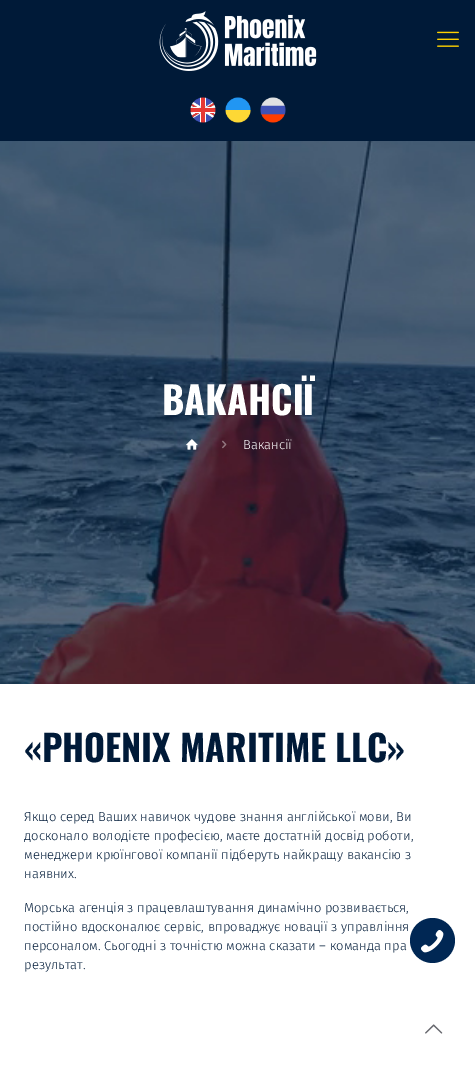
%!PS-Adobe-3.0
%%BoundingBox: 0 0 475 1070
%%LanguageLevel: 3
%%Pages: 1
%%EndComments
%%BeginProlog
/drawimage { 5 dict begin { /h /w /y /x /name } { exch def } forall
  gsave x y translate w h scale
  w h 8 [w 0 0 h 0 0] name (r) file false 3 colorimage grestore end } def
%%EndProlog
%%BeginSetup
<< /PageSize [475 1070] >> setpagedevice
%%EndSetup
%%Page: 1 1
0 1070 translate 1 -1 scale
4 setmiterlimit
1 setgray
0 0 475 1070 rectfill
0 0.102 0.22 setrgbcolor
0 0 475 141 rectfill
(images/1.raw) 159 11 158 60 drawimage
(images/2.raw) 437 31 22 16 drawimage
(images/3.raw) 190 97 26 26 drawimage
(images/4.raw) 225 97 26 26 drawimage
(images/5.raw) 260 97 26 26 drawimage
(images/6.raw) 0 141 475 543 drawimage
(images/7.raw) 186 439 12 11 drawimage
(images/8.raw) 222 440 5 9 drawimage
0 0.153 0.329 setrgbcolor
newpath 432.5 940.5 22.5 0 360 arc closepath fill
(images/9.raw) 421 930 23 23 drawimage
(images/10.raw) 425 1024 18 10 drawimage
/Oswald-Bold [38 0 0 -38 0 0] selectfont
1 setgray
162 415 moveto (ВАКАНСІЇ) show
/FiraSans-Light [13 0 0 -13 0 0] selectfont
243 449 moveto (Вакансії) show
/Oswald-Bold [36 0 0 -36 0 0] selectfont
0 0.102 0.22 setrgbcolor
24 762 moveto («PHOENIX MARITIME LLC») show
/FiraSans-Light [13 0 0 -13 0 0] selectfont
0.031 0.129 0.243 setrgbcolor
24 821 moveto (Якщо серед Ваших навичок чудове знання англійської мови, Ви) show
24 840 moveto (досконало володієте професією, маєте достатній досвід роботи,) show
24 859 moveto (менеджери крюїнгової компанії підберуть найкращу вакансію з) show
24 878 moveto (наявних.) show
24 912 moveto (Морська агенція з працевлаштування динамічно розвивається,) show
24 931 moveto (постійно вдосконалює сервіс, впроваджує новації з управління) show
24 950 moveto (персоналом. Сьогодні з точністю можна сказати – команда пра) show
24 969 moveto (результат.) show
showpage
%%EOF
